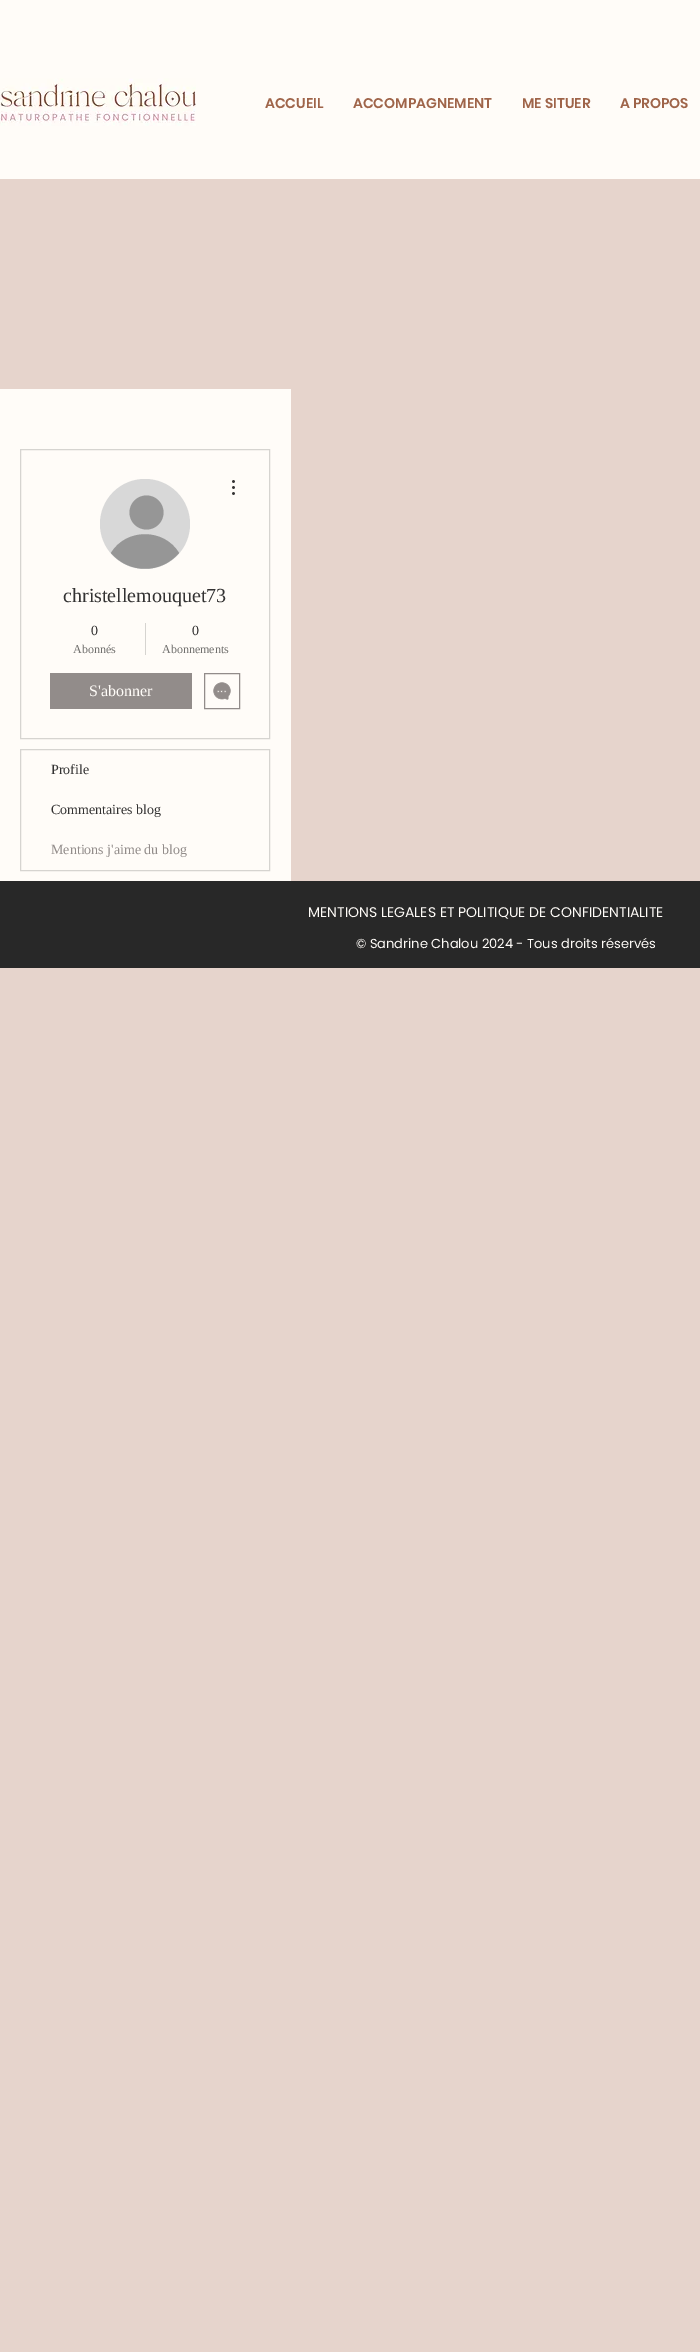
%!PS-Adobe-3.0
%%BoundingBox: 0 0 700 2352
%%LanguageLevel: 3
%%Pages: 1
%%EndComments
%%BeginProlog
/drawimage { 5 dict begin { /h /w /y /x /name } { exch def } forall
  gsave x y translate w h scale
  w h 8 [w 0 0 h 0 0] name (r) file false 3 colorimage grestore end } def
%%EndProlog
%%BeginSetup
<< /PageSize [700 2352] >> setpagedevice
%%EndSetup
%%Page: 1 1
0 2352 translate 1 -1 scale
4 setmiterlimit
0.902 0.831 0.8 setrgbcolor
0 0 700 2352 rectfill
1 0.988 0.973 setrgbcolor
0 0 700 42 rectfill
0 42 700 137 rectfill
(images/1.raw) 0 78 196 48 drawimage
0 389 291 492 rectfill
0.839 0.831 0.816 setrgbcolor
20.5 449.5 249 289 rectstroke
0.847 setgray
newpath 145 524 45 0 360 arc closepath fill
0.588 setgray
newpath 146.5 512.5 17 0 360 arc closepath fill
newpath 179 553 moveto 161 574 129 574 111 553 curveto 126 528 164 528 179 553 curveto closepath fill
(images/2.raw) 232 480 3 15 drawimage
0.839 0.831 0.816 setrgbcolor
145 623 1 32 rectfill
0.573 0.549 0.541 setrgbcolor
50 673 142 36 rectfill
204.5 673.5 35 35 rectstroke
(images/3.raw) 213 682 18 18 drawimage
0.839 0.831 0.816 setrgbcolor
20.5 749.5 249 121 rectstroke
0.157 setgray
0 881 700 87 rectfill
/Poppins-SemiBold [14 0 0 -14 0 0] selectfont
0.624 0.392 0.286 setrgbcolor
265 108 moveto (ACCUEIL) show
353 108 moveto (ACCOMPAGNEMENT) show
522 108 moveto (ME SITUER) show
620 108 moveto (A PROPOS) show
/LiberationSerif-Regular [20 0 0 -20 0 0] selectfont
0.2 0.196 0.196 setrgbcolor
63 602 moveto (christellemouquet73) show
/LiberationSerif-Regular [14 0 0 -14 0 0] selectfont
91 635 moveto (0) show
/LiberationSerif-Regular [12 0 0 -12 0 0] selectfont
0.439 0.435 0.427 setrgbcolor
73 653 moveto (Abonnés) show
/LiberationSerif-Regular [14 0 0 -14 0 0] selectfont
0.2 0.196 0.196 setrgbcolor
192 635 moveto (0) show
/LiberationSerif-Regular [12 0 0 -12 0 0] selectfont
0.439 0.435 0.427 setrgbcolor
162 653 moveto (Abonnements) show
/LiberationSerif-Regular [16 0 0 -16 0 0] selectfont
1 0.988 0.973 setrgbcolor
89 696 moveto (S'abonner) show
/LiberationSerif-Regular [14 0 0 -14 0 0] selectfont
0.2 0.196 0.196 setrgbcolor
51 774 moveto (Profile) show
51 814 moveto (Commentaires blog) show
0.573 0.549 0.541 setrgbcolor
51 854 moveto (Mentions j'aime du blog) show
/Poppins-Regular [14 0 0 -14 0 0] selectfont
1 0.988 0.973 setrgbcolor
308 917 moveto (MENTIONS LEGALES ET POLITIQUE DE CONFIDENTIALITE) show
/Poppins-Regular [13 0 0 -13 0 0] selectfont
356 948 moveto (© Sandrine Chalou 2024 - Tous droits réservés) show
showpage
%%EOF
